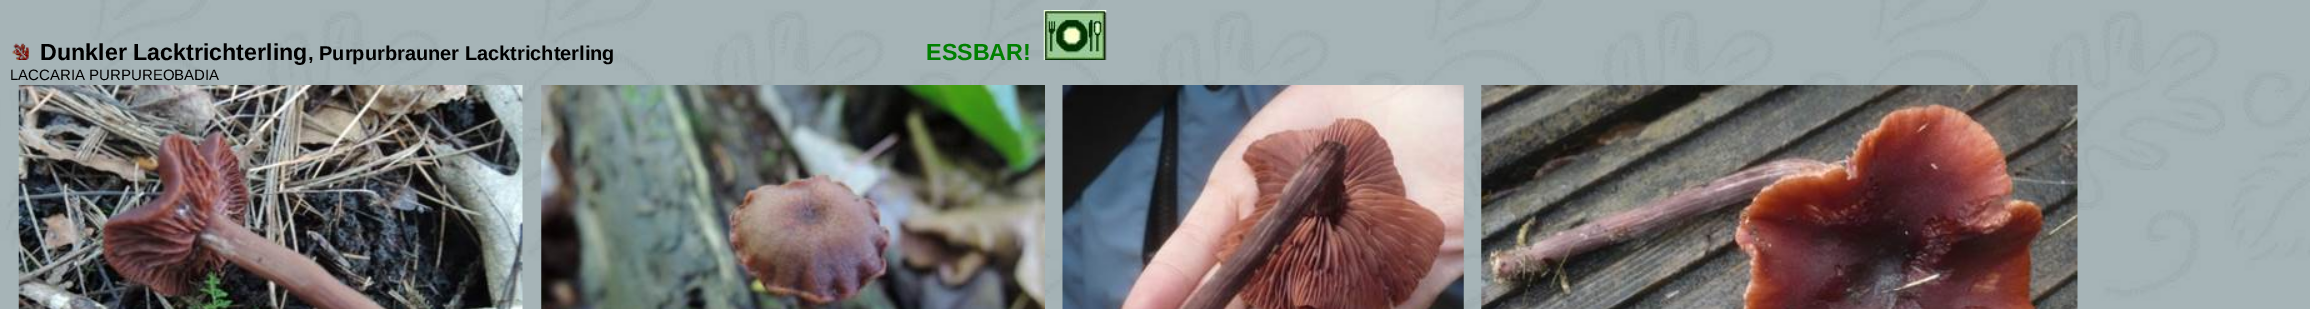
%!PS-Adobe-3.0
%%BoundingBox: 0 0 2310 309
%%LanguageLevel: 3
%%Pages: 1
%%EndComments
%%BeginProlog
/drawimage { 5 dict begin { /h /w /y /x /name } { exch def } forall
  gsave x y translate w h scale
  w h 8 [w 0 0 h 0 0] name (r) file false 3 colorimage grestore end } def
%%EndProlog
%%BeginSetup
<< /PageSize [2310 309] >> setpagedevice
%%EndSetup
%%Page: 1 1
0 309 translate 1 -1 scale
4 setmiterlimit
1 setgray
0 0 2310 309 rectfill
(images/1.raw) 0 0 2310 309 drawimage
(images/2.raw) 12 43 17 17 drawimage
(images/3.raw) 1043 10 64 50 drawimage
(images/4.raw) 18 85 505 224 drawimage
(images/5.raw) 541 85 504 224 drawimage
(images/6.raw) 1062 85 402 224 drawimage
(images/7.raw) 1481 85 597 224 drawimage
/LiberationSans-Bold [23.25 0 0 -23.25 0 0] selectfont
0 setgray
40 60 moveto (Dunkler Lacktrichterling) show
/LiberationSans-Bold [20 0 0 -20 0 0] selectfont
308 60 moveto (, Purpurbrauner Lacktrichterling) show
/LiberationSans-Bold [23.25 0 0 -23.25 0 0] selectfont
0 0.502 0 setrgbcolor
926 60 moveto (ESSBAR!) show
/LiberationSans-Regular [15 0 0 -15 0 0] selectfont
0 setgray
10 80 moveto (LACCARIA PURPUREOBADIA) show
showpage
%%EOF
